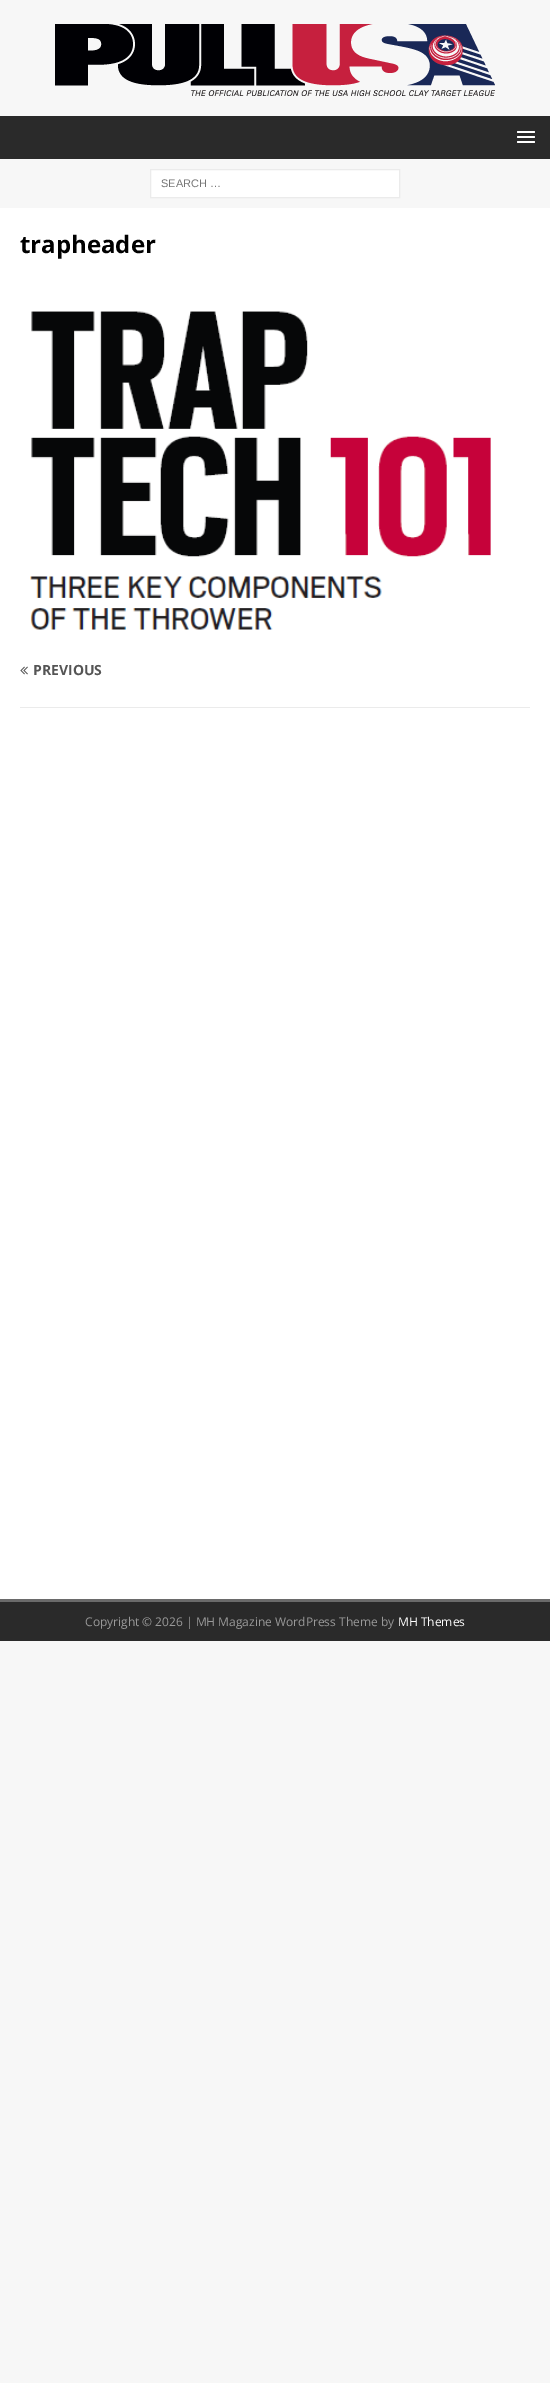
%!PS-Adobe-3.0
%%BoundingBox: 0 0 550 2383
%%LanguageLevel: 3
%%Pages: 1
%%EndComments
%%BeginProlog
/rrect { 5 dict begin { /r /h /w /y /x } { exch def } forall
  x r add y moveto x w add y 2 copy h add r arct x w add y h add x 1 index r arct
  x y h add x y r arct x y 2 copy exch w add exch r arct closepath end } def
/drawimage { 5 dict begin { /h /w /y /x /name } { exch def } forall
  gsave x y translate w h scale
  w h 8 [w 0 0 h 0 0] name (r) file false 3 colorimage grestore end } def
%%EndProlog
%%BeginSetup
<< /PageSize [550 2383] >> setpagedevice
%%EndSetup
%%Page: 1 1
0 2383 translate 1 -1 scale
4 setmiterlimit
0.969 setgray
0 0 550 2383 rectfill
(images/1.raw) 55 24 440 72 drawimage
0.165 setgray
0 116 550 43 rectfill
1 setgray
517 131 18 2 1 rrect fill
517 136 18 2 1 rrect fill
517 141 18 2 1 rrect fill
newpath 150.5 169.5 moveto 399.5 169.5 lineto 399.5 197.5 lineto 150.5 197.5 lineto closepath gsave fill grestore
0.922 setgray
stroke
1 setgray
0 208 550 1391 rectfill
(images/2.raw) 30 311 461 319 drawimage
0.922 setgray
20 707 510 1 rectfill
(images/3.raw) 20 666 8 9 drawimage
0.165 setgray
0 1602 550 39 rectfill
0.416 setgray
0 1599 550 3 rectfill
/LiberationSans-Regular [11 0 0 -11 0 0] selectfont
0.459 setgray
161 187 moveto (SEARCH …) show
/OpenSans-Bold [24 0 0 -24 0 0] selectfont
0 setgray
20 253 moveto (trapheader) show
/OpenSans-Bold [14 0 0 -14 0 0] selectfont
0.333 setgray
33 675 moveto (PREVIOUS) show
/OpenSans-Regular [12 0 0 -12 0 0] selectfont
0.6 setgray
85 1626 moveto (Copyright © 2026 | MH Magazine WordPress Theme by) show
1 setgray
398 1626 moveto (MH Themes) show
showpage
%%EOF
